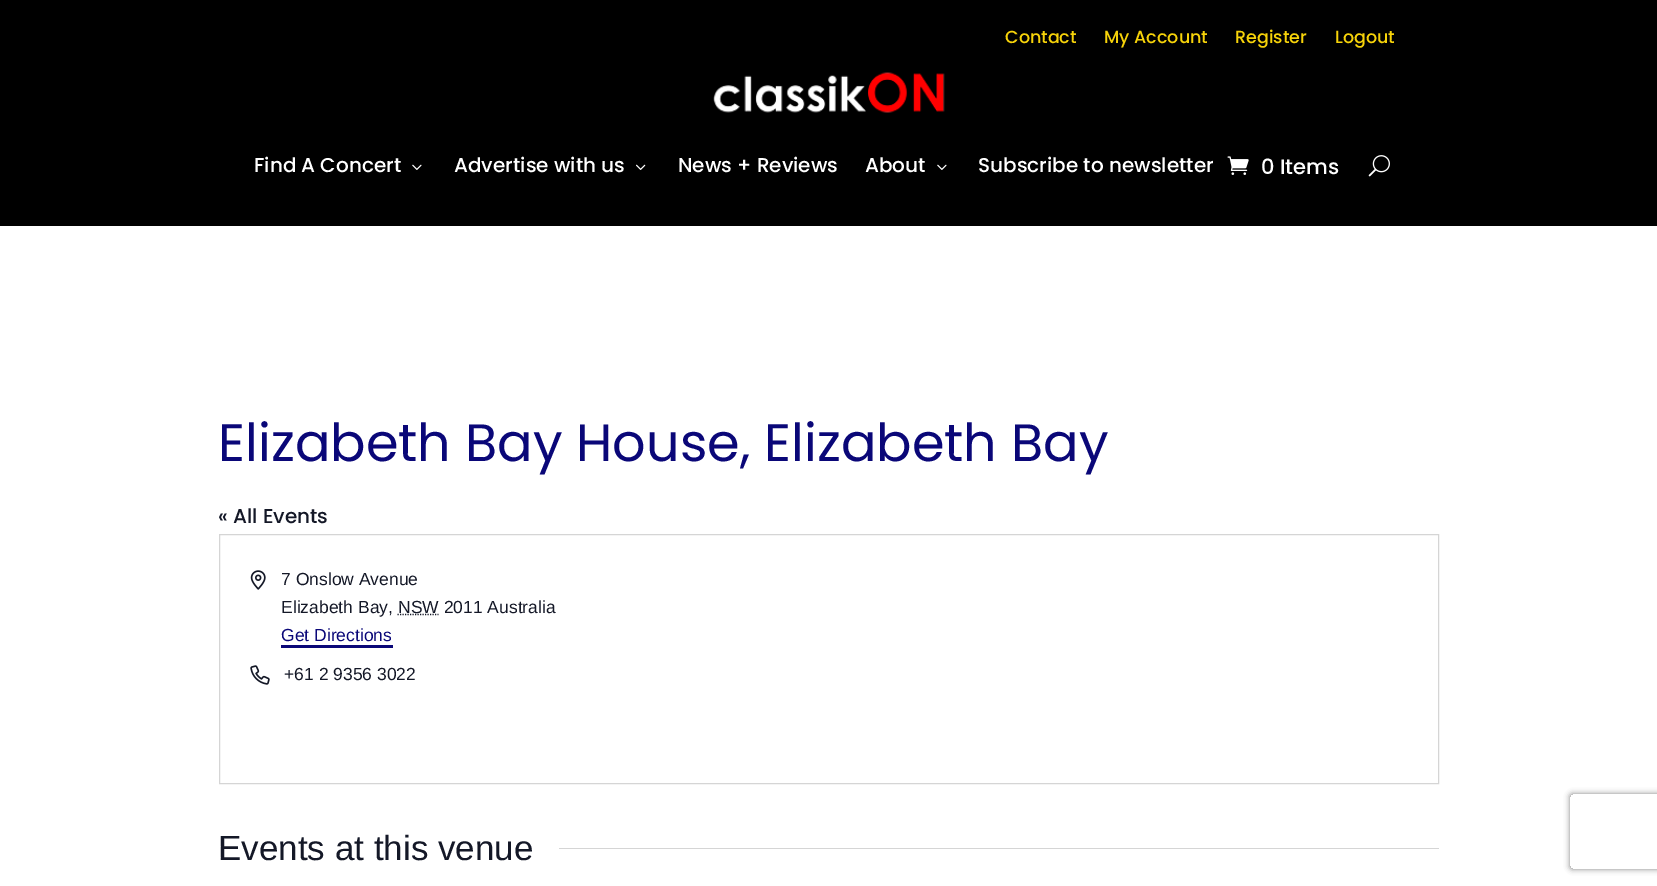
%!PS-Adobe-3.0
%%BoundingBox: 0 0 1657 886
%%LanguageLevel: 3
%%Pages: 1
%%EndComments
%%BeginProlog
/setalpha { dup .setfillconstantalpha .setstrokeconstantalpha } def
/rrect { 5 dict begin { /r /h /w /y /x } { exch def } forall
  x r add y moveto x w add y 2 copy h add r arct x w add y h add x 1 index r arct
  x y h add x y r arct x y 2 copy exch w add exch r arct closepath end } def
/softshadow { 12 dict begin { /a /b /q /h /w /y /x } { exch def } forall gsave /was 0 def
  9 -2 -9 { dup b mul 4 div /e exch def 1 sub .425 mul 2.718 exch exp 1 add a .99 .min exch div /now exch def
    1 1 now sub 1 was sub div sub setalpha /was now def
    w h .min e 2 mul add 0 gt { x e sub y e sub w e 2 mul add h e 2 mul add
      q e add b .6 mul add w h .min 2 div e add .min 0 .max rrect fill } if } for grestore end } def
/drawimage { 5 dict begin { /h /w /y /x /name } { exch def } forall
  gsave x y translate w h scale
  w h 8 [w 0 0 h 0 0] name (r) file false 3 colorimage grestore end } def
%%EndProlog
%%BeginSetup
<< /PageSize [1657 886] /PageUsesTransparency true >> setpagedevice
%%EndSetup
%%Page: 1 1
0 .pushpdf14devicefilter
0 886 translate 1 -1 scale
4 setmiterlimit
1 setgray
0 0 1657 886 rectfill
0 setgray
0 0 1657 226 rectfill
(images/1.raw) 713 72 232 41 drawimage
(images/2.raw) 412 164 10 6 drawimage
(images/3.raw) 636 164 10 6 drawimage
(images/2.raw) 937 164 10 6 drawimage
(images/4.raw) 1227 156 22 19 drawimage
(images/5.raw) 1368 155 22 22 drawimage
0.835 setgray
219.5 534.5 1219 249 rectstroke
(images/6.raw) 250 570 16 20 drawimage
0.078 0.094 0.153 setrgbcolor
1.2 setlinewidth
[1.25 1.25] 0 setdash
newpath 397.5 614.5 moveto 438.5 614.5 lineto stroke
0.039 0.027 0.471 setrgbcolor
281 645 112 3 rectfill
(images/7.raw) 250 665 20 20 drawimage
0.835 setgray
559 848 880 1 rectfill
gsave
newpath 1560 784 moveto 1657 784 lineto 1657 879 lineto 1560 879 lineto closepath 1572.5 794 moveto 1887.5 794 lineto 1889 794 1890 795 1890 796.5 curveto 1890 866.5 lineto 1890 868 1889 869 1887.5 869 curveto 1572.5 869 lineto 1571 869 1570 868 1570 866.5 curveto 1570 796.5 lineto 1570 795 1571 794 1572.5 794 curveto closepath eoclip newpath
0.502 setgray
1570 794 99 75 2.5 3 1 softshadow
grestore
/Poppins-Medium [17.5 0 0 -17.5 0 0] selectfont
0.969 0.827 0.035 setrgbcolor
1005 43 moveto (Contact) show
1104 43 moveto (My Account) show
1235 43 moveto (Register) show
1335 43 moveto (Logout) show
/Poppins-Medium [20 0 0 -20 0 0] selectfont
1 setgray
254 172 moveto (Find A Concert) show
454 172 moveto (Advertise with us) show
678 172 moveto (News + Reviews) show
865 172 moveto (About) show
978 172 moveto (Subscribe to newsletter) show
/Poppins-Medium [21 0 0 -21 0 0] selectfont
1261 174 moveto (0 Items) show
/Poppins-Regular [52.5 0 0 -52.5 0 0] selectfont
0.039 0.027 0.471 setrgbcolor
218 461 moveto (Elizabeth Bay House, Elizabeth Bay) show
/Poppins-Medium [20 0 0 -20 0 0] selectfont
0.078 0.094 0.153 setrgbcolor
218 523 moveto (« All Events) show
/LiberationSans-Regular [17.5 0 0 -17.5 0 0] selectfont
281 585 moveto (7 Onslow Avenue) show
281 613 moveto (Elizabeth Bay,) show
398 613 moveto (NSW 2011 Australia) show
0.039 0.027 0.471 setrgbcolor
281 641 moveto (Get Directions) show
0.078 0.094 0.153 setrgbcolor
284 680 moveto (+61 2 9356 3022) show
/LiberationSans-Regular [35 0 0 -35 0 0] selectfont
218 860 moveto (Events at this venue) show
.poppdf14devicefilter showpage
%%EOF
